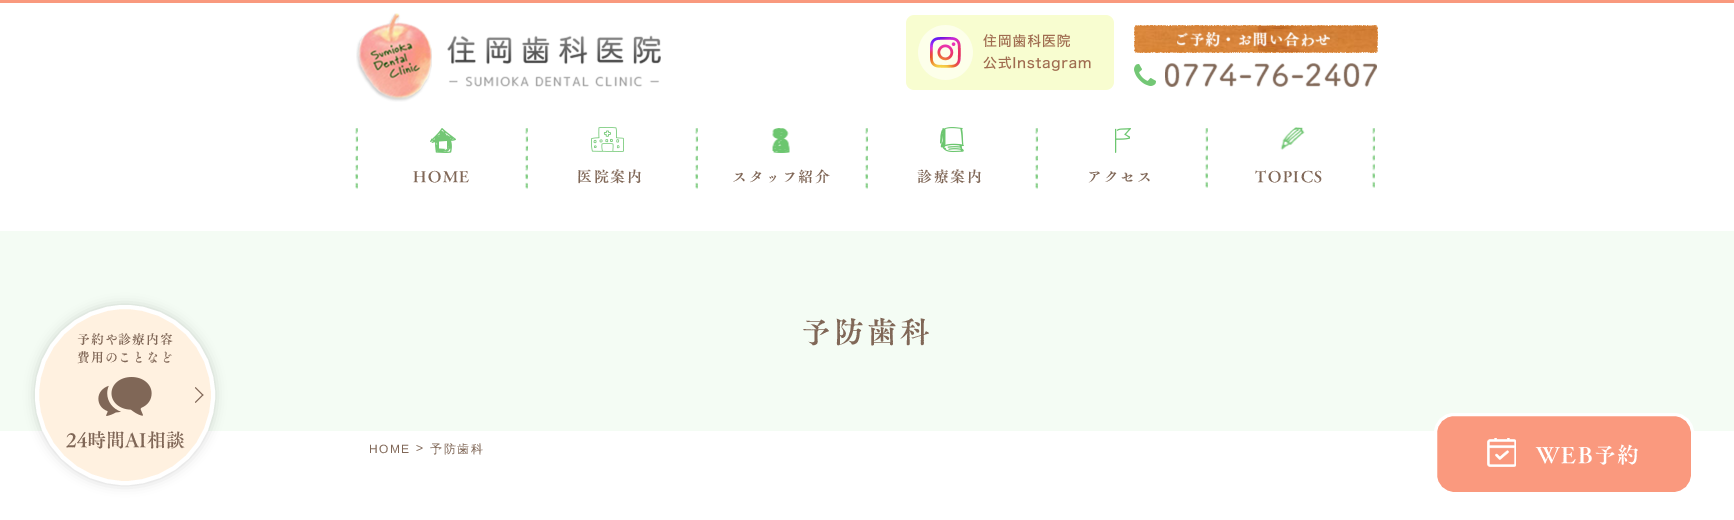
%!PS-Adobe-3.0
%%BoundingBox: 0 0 1734 520
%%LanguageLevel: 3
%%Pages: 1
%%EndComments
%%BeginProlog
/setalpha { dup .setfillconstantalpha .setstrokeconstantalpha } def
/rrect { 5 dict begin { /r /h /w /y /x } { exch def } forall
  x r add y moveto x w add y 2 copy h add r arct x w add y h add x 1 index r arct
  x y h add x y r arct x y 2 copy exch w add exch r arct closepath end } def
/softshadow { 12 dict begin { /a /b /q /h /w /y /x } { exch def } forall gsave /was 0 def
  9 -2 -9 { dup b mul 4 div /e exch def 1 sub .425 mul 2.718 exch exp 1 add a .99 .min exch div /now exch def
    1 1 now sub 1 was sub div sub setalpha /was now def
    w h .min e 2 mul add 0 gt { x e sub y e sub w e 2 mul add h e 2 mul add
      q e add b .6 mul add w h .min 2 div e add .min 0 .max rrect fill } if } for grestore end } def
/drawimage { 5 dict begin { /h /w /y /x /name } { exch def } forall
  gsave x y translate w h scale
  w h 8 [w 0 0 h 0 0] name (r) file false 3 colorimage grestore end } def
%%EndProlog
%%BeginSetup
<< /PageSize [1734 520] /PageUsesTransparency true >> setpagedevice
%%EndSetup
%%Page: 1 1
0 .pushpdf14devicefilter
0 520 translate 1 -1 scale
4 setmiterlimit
1 setgray
0 0 1734 520 rectfill
0.976 0.6 0.494 setrgbcolor
0 0 1734 3 rectfill
(images/1.raw) 356 13 305 89 drawimage
(images/2.raw) 906 15 208 75 drawimage
(images/3.raw) 1134 25 244 62 drawimage
(images/4.raw) 355 128 101 61 drawimage
(images/5.raw) 525 127 99 62 drawimage
(images/6.raw) 695 128 95 61 drawimage
(images/7.raw) 865 127 99 62 drawimage
(images/8.raw) 1035 128 96 61 drawimage
(images/9.raw) 1205 127 170 61 drawimage
0.957 0.988 0.957 setrgbcolor
0 231 1734 200 rectfill
0 setgray
35 305 180 180 90 5.5 0.16 softshadow
1 0.945 0.878 setrgbcolor
newpath 125 395 88 0 360 arc closepath gsave fill grestore
1 setgray
4 setlinewidth
stroke
(images/10.raw) 98 377 54 39 drawimage
0.502 0.404 0.341 setrgbcolor
newpath 195.5 387 moveto 203.5 395 lineto 202.5 395.5 lineto 195 388 lineto closepath fill
newpath 202.5 394.5 moveto 203.5 395 lineto 195.5 403 lineto 195 402 lineto closepath fill
0.98 0.6 0.494 setrgbcolor
1435.5 414.5 257 79 18.5 rrect gsave fill grestore
1 setgray
3 setlinewidth
stroke
(images/11.raw) 1487 438 29 29 drawimage
/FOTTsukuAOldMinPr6-Bold [15 0 0 -15 0 0] selectfont
0.502 0.404 0.341 setrgbcolor
413 182 moveto 1.5 0 (HOME) ashow
577 182 moveto 1.5 0 (医院案内) ashow
732 182 moveto 1.5 0 (スタッフ紹介) ashow
917 182 moveto 1.5 0 (診療案内) ashow
1087 182 moveto 1.5 0 (アクセス) ashow
1255 182 moveto 1.5 0 (TOPICS) ashow
/FOTTsukuAOldMinPr6-Bold [13 0 0 -13 0 0] selectfont
77 344 moveto 0.75 0 (予約や診療内容) ashow
77 362 moveto 0.75 0 (費用のことなど) ashow
/FOTTsukuAOldMinPr6-Bold [19 0 0 -19 0 0] selectfont
66 447 moveto (24時間AI相談) show
/FOTTsukuAOldMinPr6-Bold [22 0 0 -22 0 0] selectfont
1 setgray
1536 463 moveto 1.5 0 (WEB予約) ashow
/FOTTsukuAOldMinPr6-Bold [30 0 0 -30 0 0] selectfont
0.502 0.404 0.341 setrgbcolor
801 343 moveto 3 0 (予防歯科) ashow
/LiberationSans-Regular [12 0 0 -12 0 0] selectfont
369 453 moveto 1.5 0 (HOME) ashow
416 452 moveto 1.5 0 (>) ashow
/WenQuanYiZenHei-Medium [12 0 0 -12 0 0] selectfont
430 453 moveto 1.5 0 (予防歯科) ashow
.poppdf14devicefilter showpage
%%EOF
